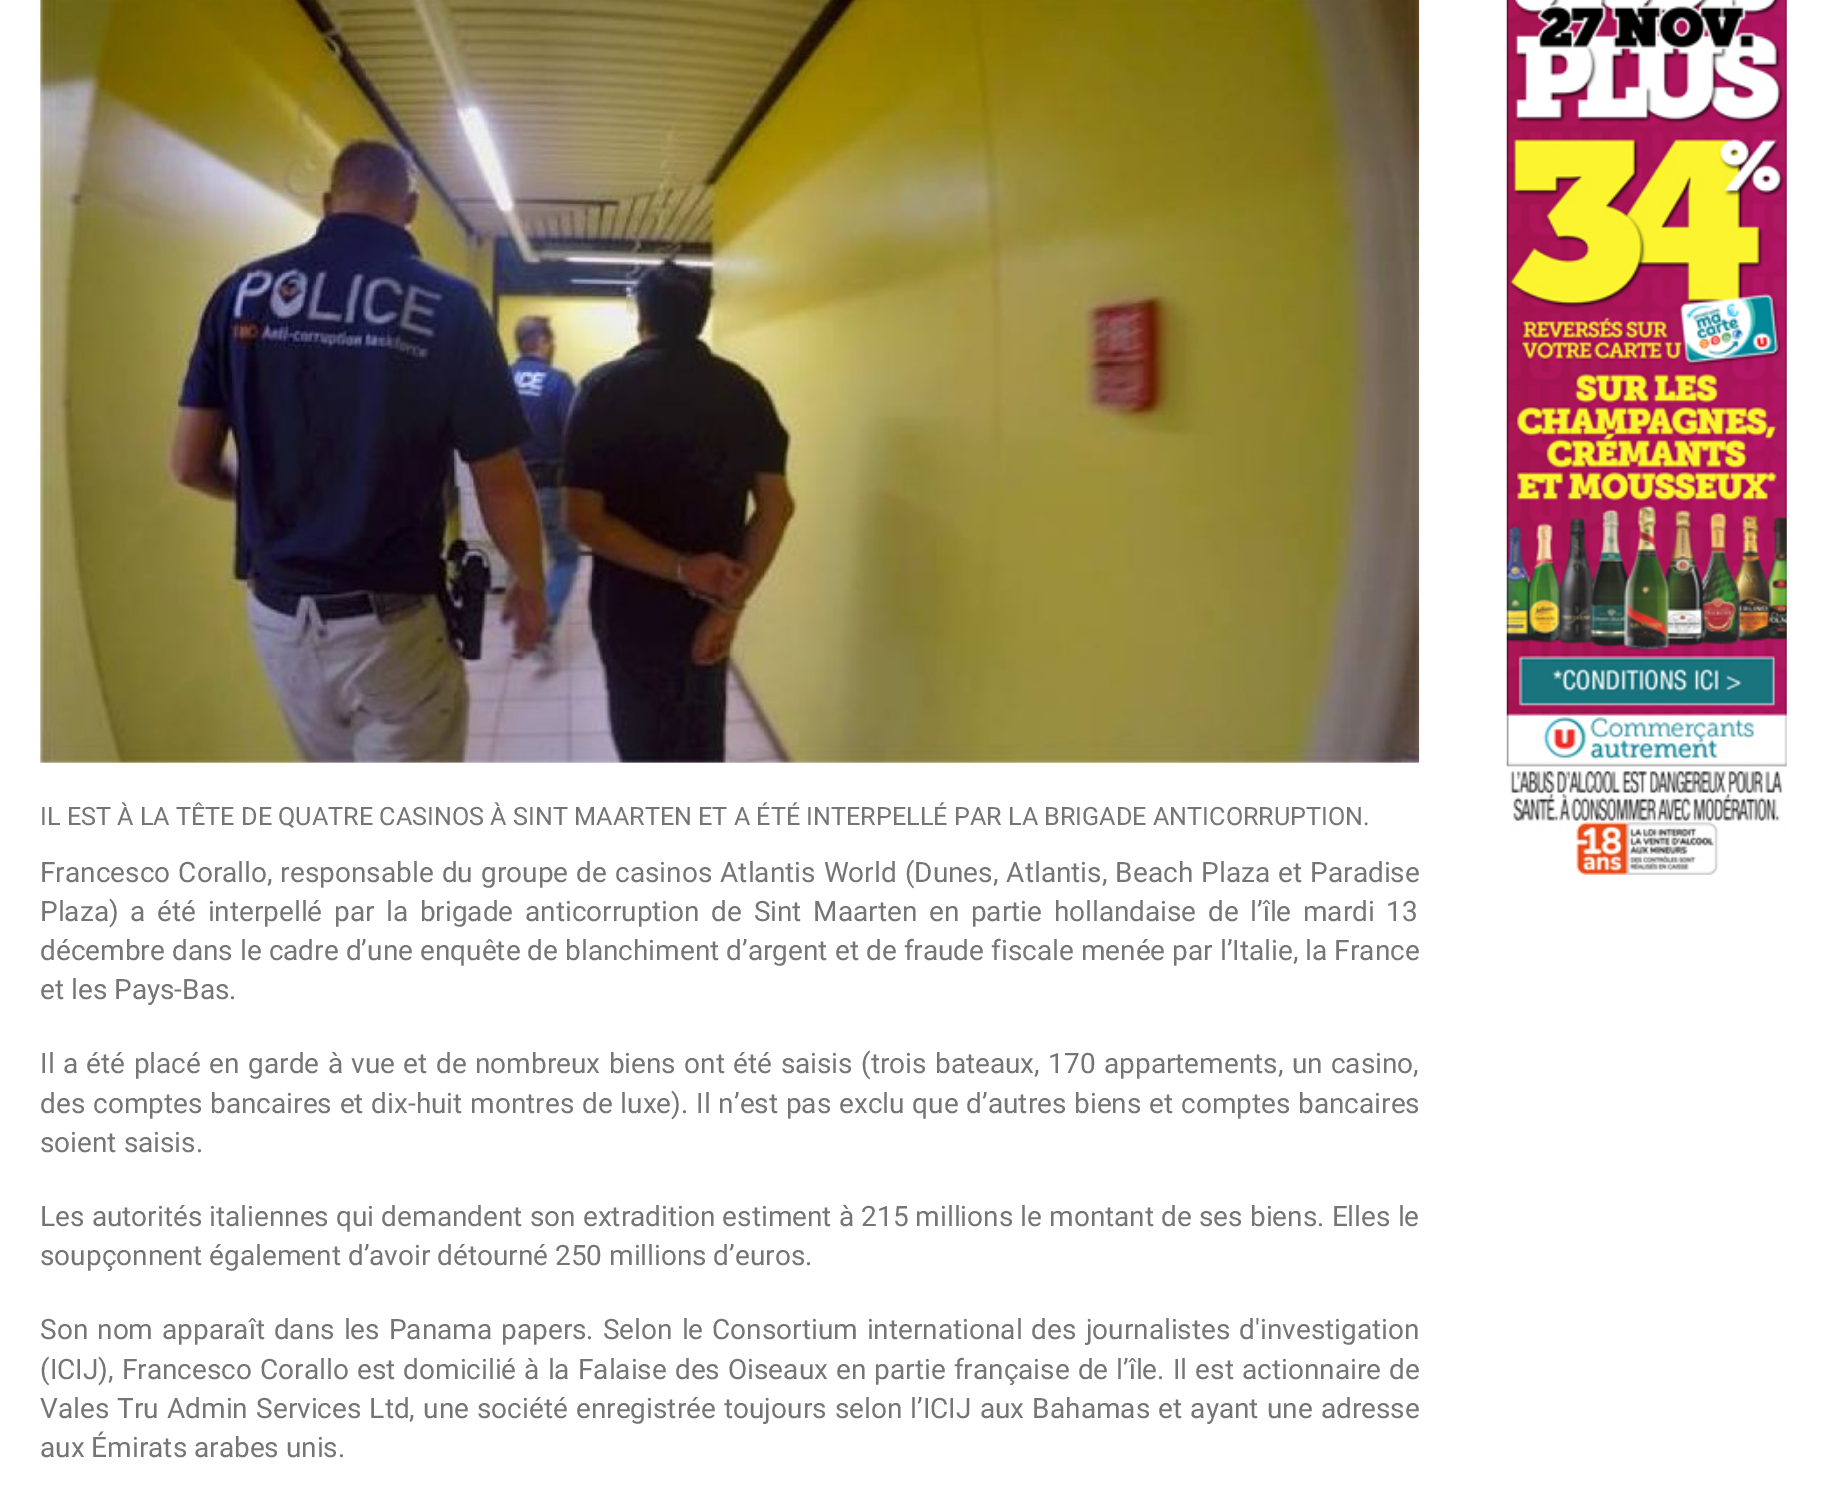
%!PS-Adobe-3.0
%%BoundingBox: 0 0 1827 1485
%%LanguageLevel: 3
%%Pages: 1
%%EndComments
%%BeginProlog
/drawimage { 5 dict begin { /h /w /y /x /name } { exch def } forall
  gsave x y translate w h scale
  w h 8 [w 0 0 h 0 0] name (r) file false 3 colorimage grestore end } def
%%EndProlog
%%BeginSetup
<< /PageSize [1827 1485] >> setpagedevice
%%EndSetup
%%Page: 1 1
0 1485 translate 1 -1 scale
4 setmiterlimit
1 setgray
0 0 1827 1485 rectfill
(images/1.raw) 1506 0 281 875 drawimage
0.902 setgray
40 0 1379 763 rectfill
(images/2.raw) 40 0 1380 763 drawimage
/Roboto-Regular [25.2 0 0 -25.2 0 0] selectfont
0.459 setgray
40 825 moveto (IL EST À LA TÊTE DE QUATRE CASINOS À SINT MAARTEN ET A ÉTÉ INTERPELLÉ PAR LA BRIGADE ANTICORRUPTION.) show
/Roboto-Regular [28 0 0 -28 0 0] selectfont
40 882 moveto 1.25 0 32 (Francesco Corallo, responsable du groupe de casinos Atlantis World \(Dunes, Atlantis, Beach Plaza et Paradise) widthshow
40 921 moveto 4.75 0 32 (Plaza\) a été interpellé par la brigade anticorruption de Sint Maarten en partie hollandaise de l’île mardi 13) widthshow
40 960 moveto 0.2 0 32 (décembre dans le cadre d’une enquête de blanchiment d’argent et de fraude fiscale menée par l’Italie, la France) widthshow
40 999 moveto (et les Pays-Bas.) show
40 1073 moveto 1.5 0 32 (Il a été placé en garde à vue et de nombreux biens ont été saisis \(trois bateaux, 170 appartements, un casino,) widthshow
40 1113 moveto 0.9 0 32 (des comptes bancaires et dix-huit montres de luxe\). Il n’est pas exclu que d’autres biens et comptes bancaires) widthshow
40 1152 moveto (soient saisis.) show
40 1226 moveto 0.25 0 32 (Les autorités italiennes qui demandent son extradition estiment à 215 millions le montant de ses biens. Elles le) widthshow
40 1265 moveto (soupçonnent également d’avoir détourné 250 millions d’euros.) show
40 1339 moveto 2.1 0 32 (Son nom apparaît dans les Panama papers. Selon le Consortium international des journalistes d'investigation) widthshow
40 1379 moveto 1.2 0 32 (\(ICIJ\), Francesco Corallo est domicilié à la Falaise des Oiseaux en partie française de l’île. Il est actionnaire de) widthshow
40 1418 moveto 1.25 0 32 (Vales Tru Admin Services Ltd, une société enregistrée toujours selon l’ICIJ aux Bahamas et ayant une adresse) widthshow
40 1457 moveto (aux Émirats arabes unis.) show
showpage
%%EOF
